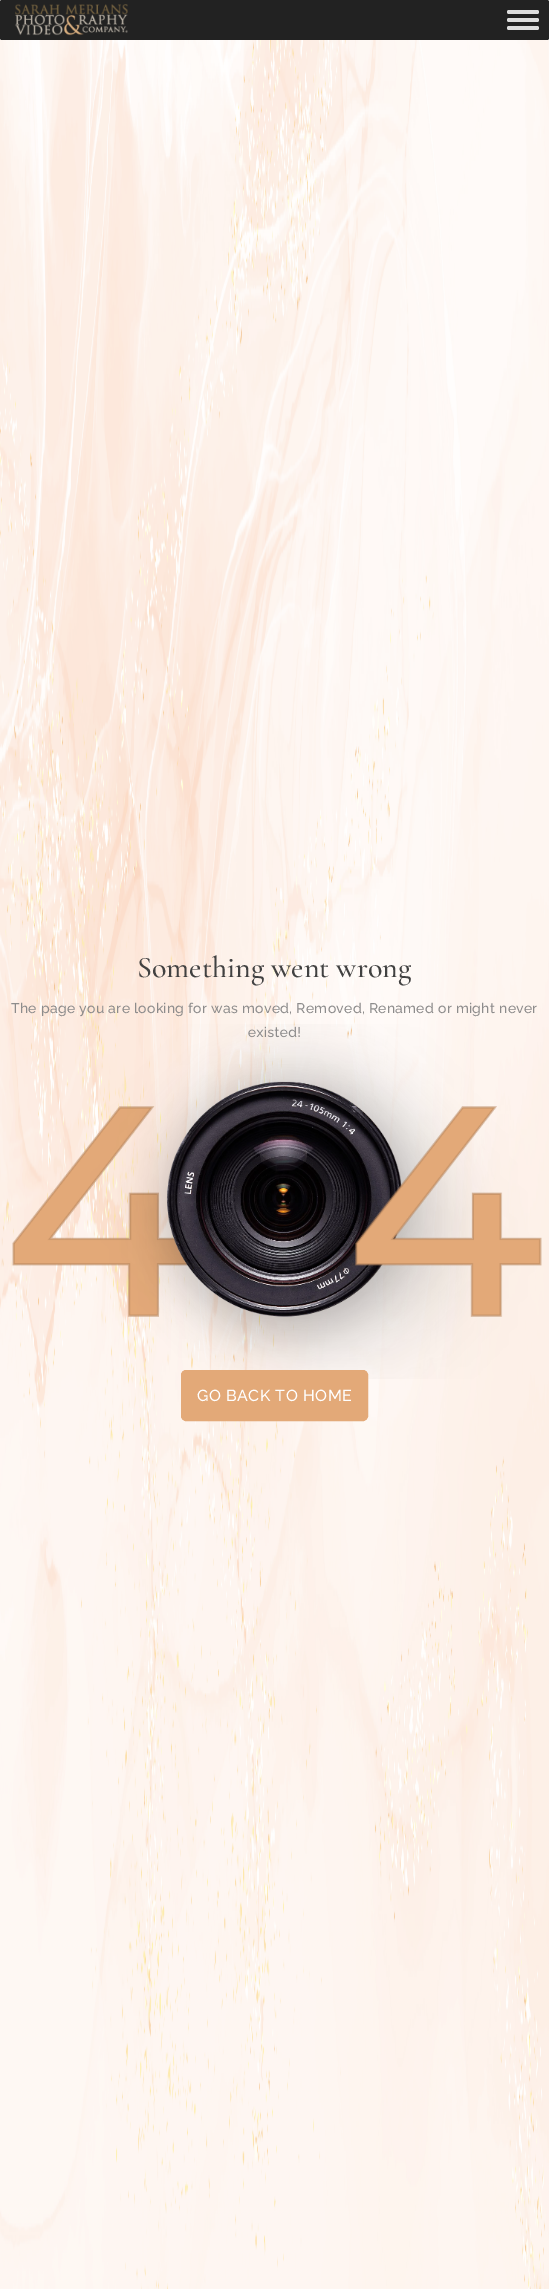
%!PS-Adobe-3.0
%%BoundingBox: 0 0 549 2289
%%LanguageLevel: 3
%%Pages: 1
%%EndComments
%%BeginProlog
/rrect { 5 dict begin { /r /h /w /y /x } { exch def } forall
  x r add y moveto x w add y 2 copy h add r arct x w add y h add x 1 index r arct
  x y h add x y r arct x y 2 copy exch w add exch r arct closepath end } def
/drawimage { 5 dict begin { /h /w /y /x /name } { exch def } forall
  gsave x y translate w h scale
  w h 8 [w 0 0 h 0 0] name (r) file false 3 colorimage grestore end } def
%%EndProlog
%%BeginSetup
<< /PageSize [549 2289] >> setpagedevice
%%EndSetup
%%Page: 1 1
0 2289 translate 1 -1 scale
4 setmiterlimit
1 setgray
0 0 549 2289 rectfill
0.133 setgray
0 0 549 40 2 rrect fill
(images/1.raw) 15 4 113 32 drawimage
0.867 setgray
507 10 32 4 2 rrect fill
507 18 32 4 2 rrect fill
507 26 32 4 2 rrect fill
(images/2.raw) 0 40 549 2249 drawimage
/CormorantGaramond-Medium [30 0 0 -30 0 0] selectfont
0.255 setgray
137 977 moveto (Something went wrong) show
/Raleway-Medium [14 0 0 -14 0 0] selectfont
0.553 0.549 0.549 setrgbcolor
11 1013 moveto 0.28 0 (The page you are looking for was moved, Removed, Renamed or might never) ashow
248 1037 moveto 0.28 0 (existed!) ashow
(images/3.raw) 12 1024 530 355 drawimage
0.89 0.663 0.471 setrgbcolor
181.5 1370.5 186 50 4.5 rrect gsave fill grestore
stroke
/Raleway-Medium [16 0 0 -16 0 0] selectfont
1 setgray
197 1401 moveto 0.5 0 (GO BACK TO HOME) ashow
showpage
%%EOF
